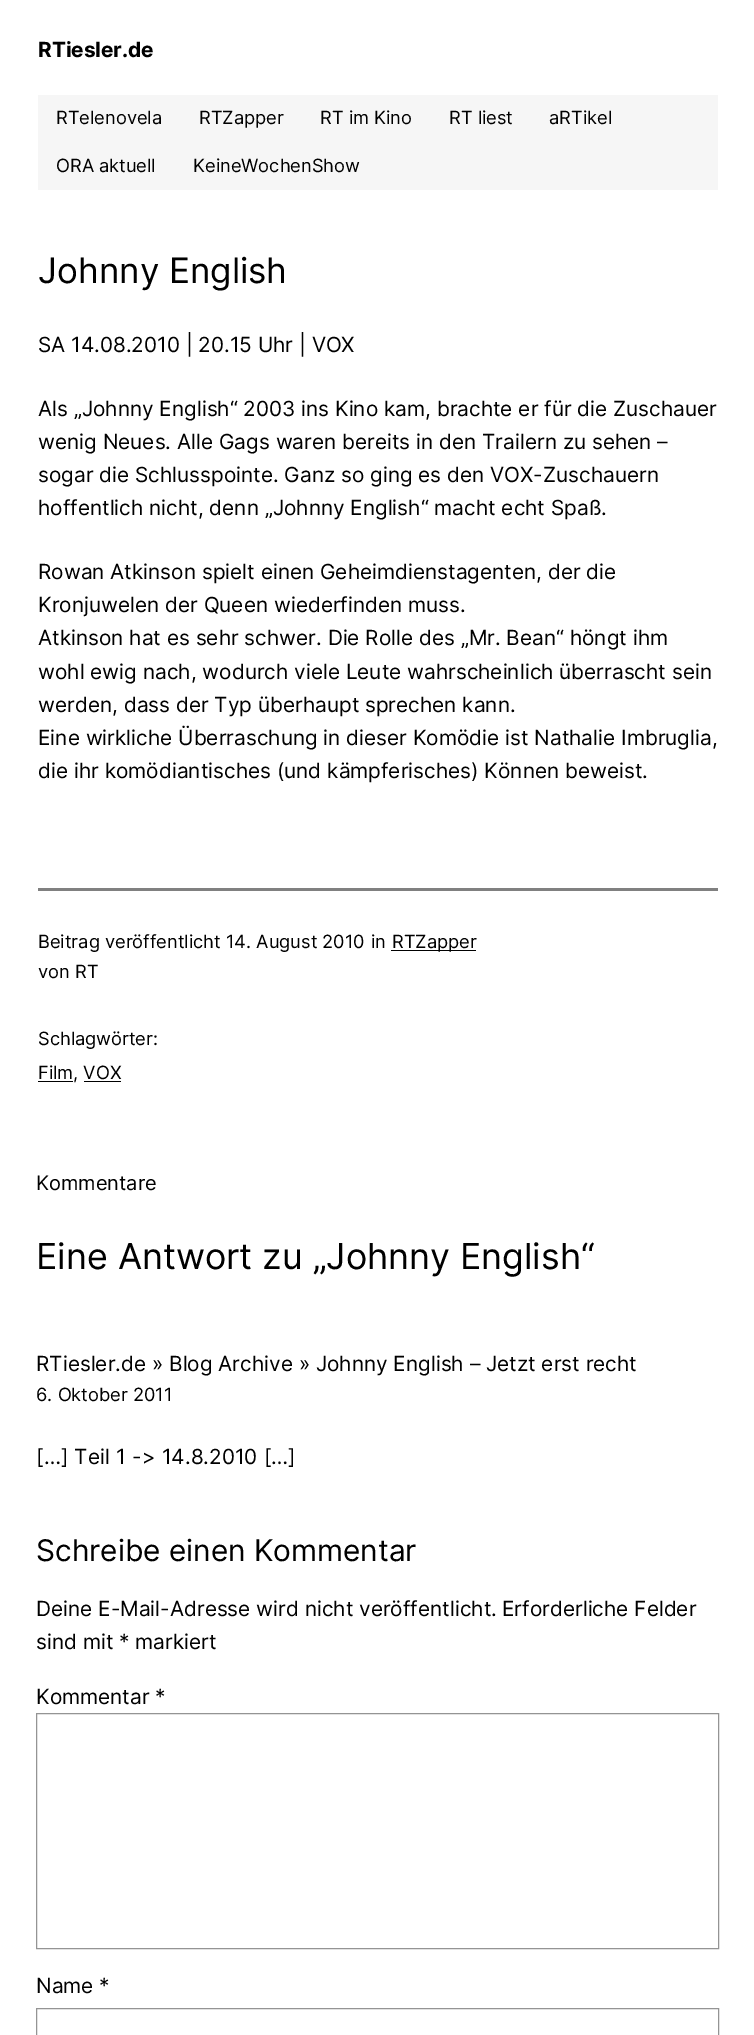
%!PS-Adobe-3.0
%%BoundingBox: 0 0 754 2035
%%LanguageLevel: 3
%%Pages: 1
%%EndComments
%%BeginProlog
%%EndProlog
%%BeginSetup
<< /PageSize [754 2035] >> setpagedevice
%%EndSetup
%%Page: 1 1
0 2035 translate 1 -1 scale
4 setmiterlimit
1 setgray
0 0 754 2035 rectfill
0.965 setgray
38 95 680 95 rectfill
0.502 setgray
38 888 680 3 rectfill
0 setgray
391 950 85 1 rectfill
38 1081 35 1 rectfill
84 1081 37 1 rectfill
0.58 setgray
36.5 1713.5 682 235 rectstroke
36.5 2008.5 682 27 rectstroke
/Inter-Bold [20.8 0 0 -20.8 0 0] selectfont
0 setgray
38 57 moveto (RTiesler.de) show
/Inter-Regular [18.25 0 0 -18.25 0 0] selectfont
56 124 moveto (RTelenovela) show
199 124 moveto (RTZapper) show
320 124 moveto (RT im Kino) show
449 124 moveto (RT liest) show
549 124 moveto (aRTikel) show
56 172 moveto (ORA aktuell) show
193 172 moveto (KeineWochenShow) show
/Inter-Regular [35 0 0 -35 0 0] selectfont
38 283 moveto (Johnny English) show
/Inter-Regular [20.8 0 0 -20.8 0 0] selectfont
38 352 moveto (SA 14.08.2010 | 20.15 Uhr | VOX) show
38 416 moveto (Als „Johnny English“ 2003 ins Kino kam, brachte er für die Zuschauer) show
38 449 moveto (wenig Neues. Alle Gags waren bereits in den Trailern zu sehen –) show
38 482 moveto (sogar die Schlusspointe. Ganz so ging es den VOX-Zuschauern) show
38 515 moveto (hoffentlich nicht, denn „Johnny English“ macht echt Spaß.) show
38 579 moveto (Rowan Atkinson spielt einen Geheimdienstagenten, der die) show
38 612 moveto (Kronjuwelen der Queen wiederfinden muss.) show
38 645 moveto (Atkinson hat es sehr schwer. Die Rolle des „Mr. Bean“ höngt ihm) show
38 679 moveto (wohl ewig nach, wodurch viele Leute wahrscheinlich überrascht sein) show
38 712 moveto (werden, dass der Typ überhaupt sprechen kann.) show
38 745 moveto (Eine wirkliche Überraschung in dieser Komödie ist Nathalie Imbruglia,) show
38 778 moveto (die ihr komödiantisches \(und kämpferisches\) Können beweist.) show
/Inter-Regular [18.25 0 0 -18.25 0 0] selectfont
38 948 moveto (Beitrag veröffentlicht) show
226 948 moveto (14. August 2010) show
371 948 moveto (in) show
392 948 moveto (RTZapper) show
38 978 moveto (von) show
75 978 moveto (RT) show
38 1045 moveto (Schlagwörter:) show
38 1079 moveto (Film, VOX) show
/Inter-Regular [20 0 0 -20 0 0] selectfont
36 1190 moveto (Kommentare) show
/Inter-Regular [35.75 0 0 -35.75 0 0] selectfont
36 1269 moveto (Eine Antwort zu „Johnny English“) show
/Inter-Regular [20.8 0 0 -20.8 0 0] selectfont
36 1371 moveto (RTiesler.de » Blog Archive » Johnny English – Jetzt erst recht) show
/Inter-Regular [18.25 0 0 -18.25 0 0] selectfont
36 1401 moveto (6. Oktober 2011) show
/Inter-Regular [20.8 0 0 -20.8 0 0] selectfont
36 1464 moveto 0.5 0 32 ([…] Teil 1 -> 14.8.2010 […]) widthshow
/Inter-Regular [29.8 0 0 -29.8 0 0] selectfont
36 1561 moveto (Schreibe einen Kommentar) show
/Inter-Regular [20.8 0 0 -20.8 0 0] selectfont
36 1616 moveto (Deine E-Mail-Adresse wird nicht veröffentlicht.) show
502 1616 moveto (Erforderliche Felder) show
36 1649 moveto (sind mit * markiert) show
36 1704 moveto (Kommentar *) show
36 1993 moveto (Name *) show
showpage
%%EOF
